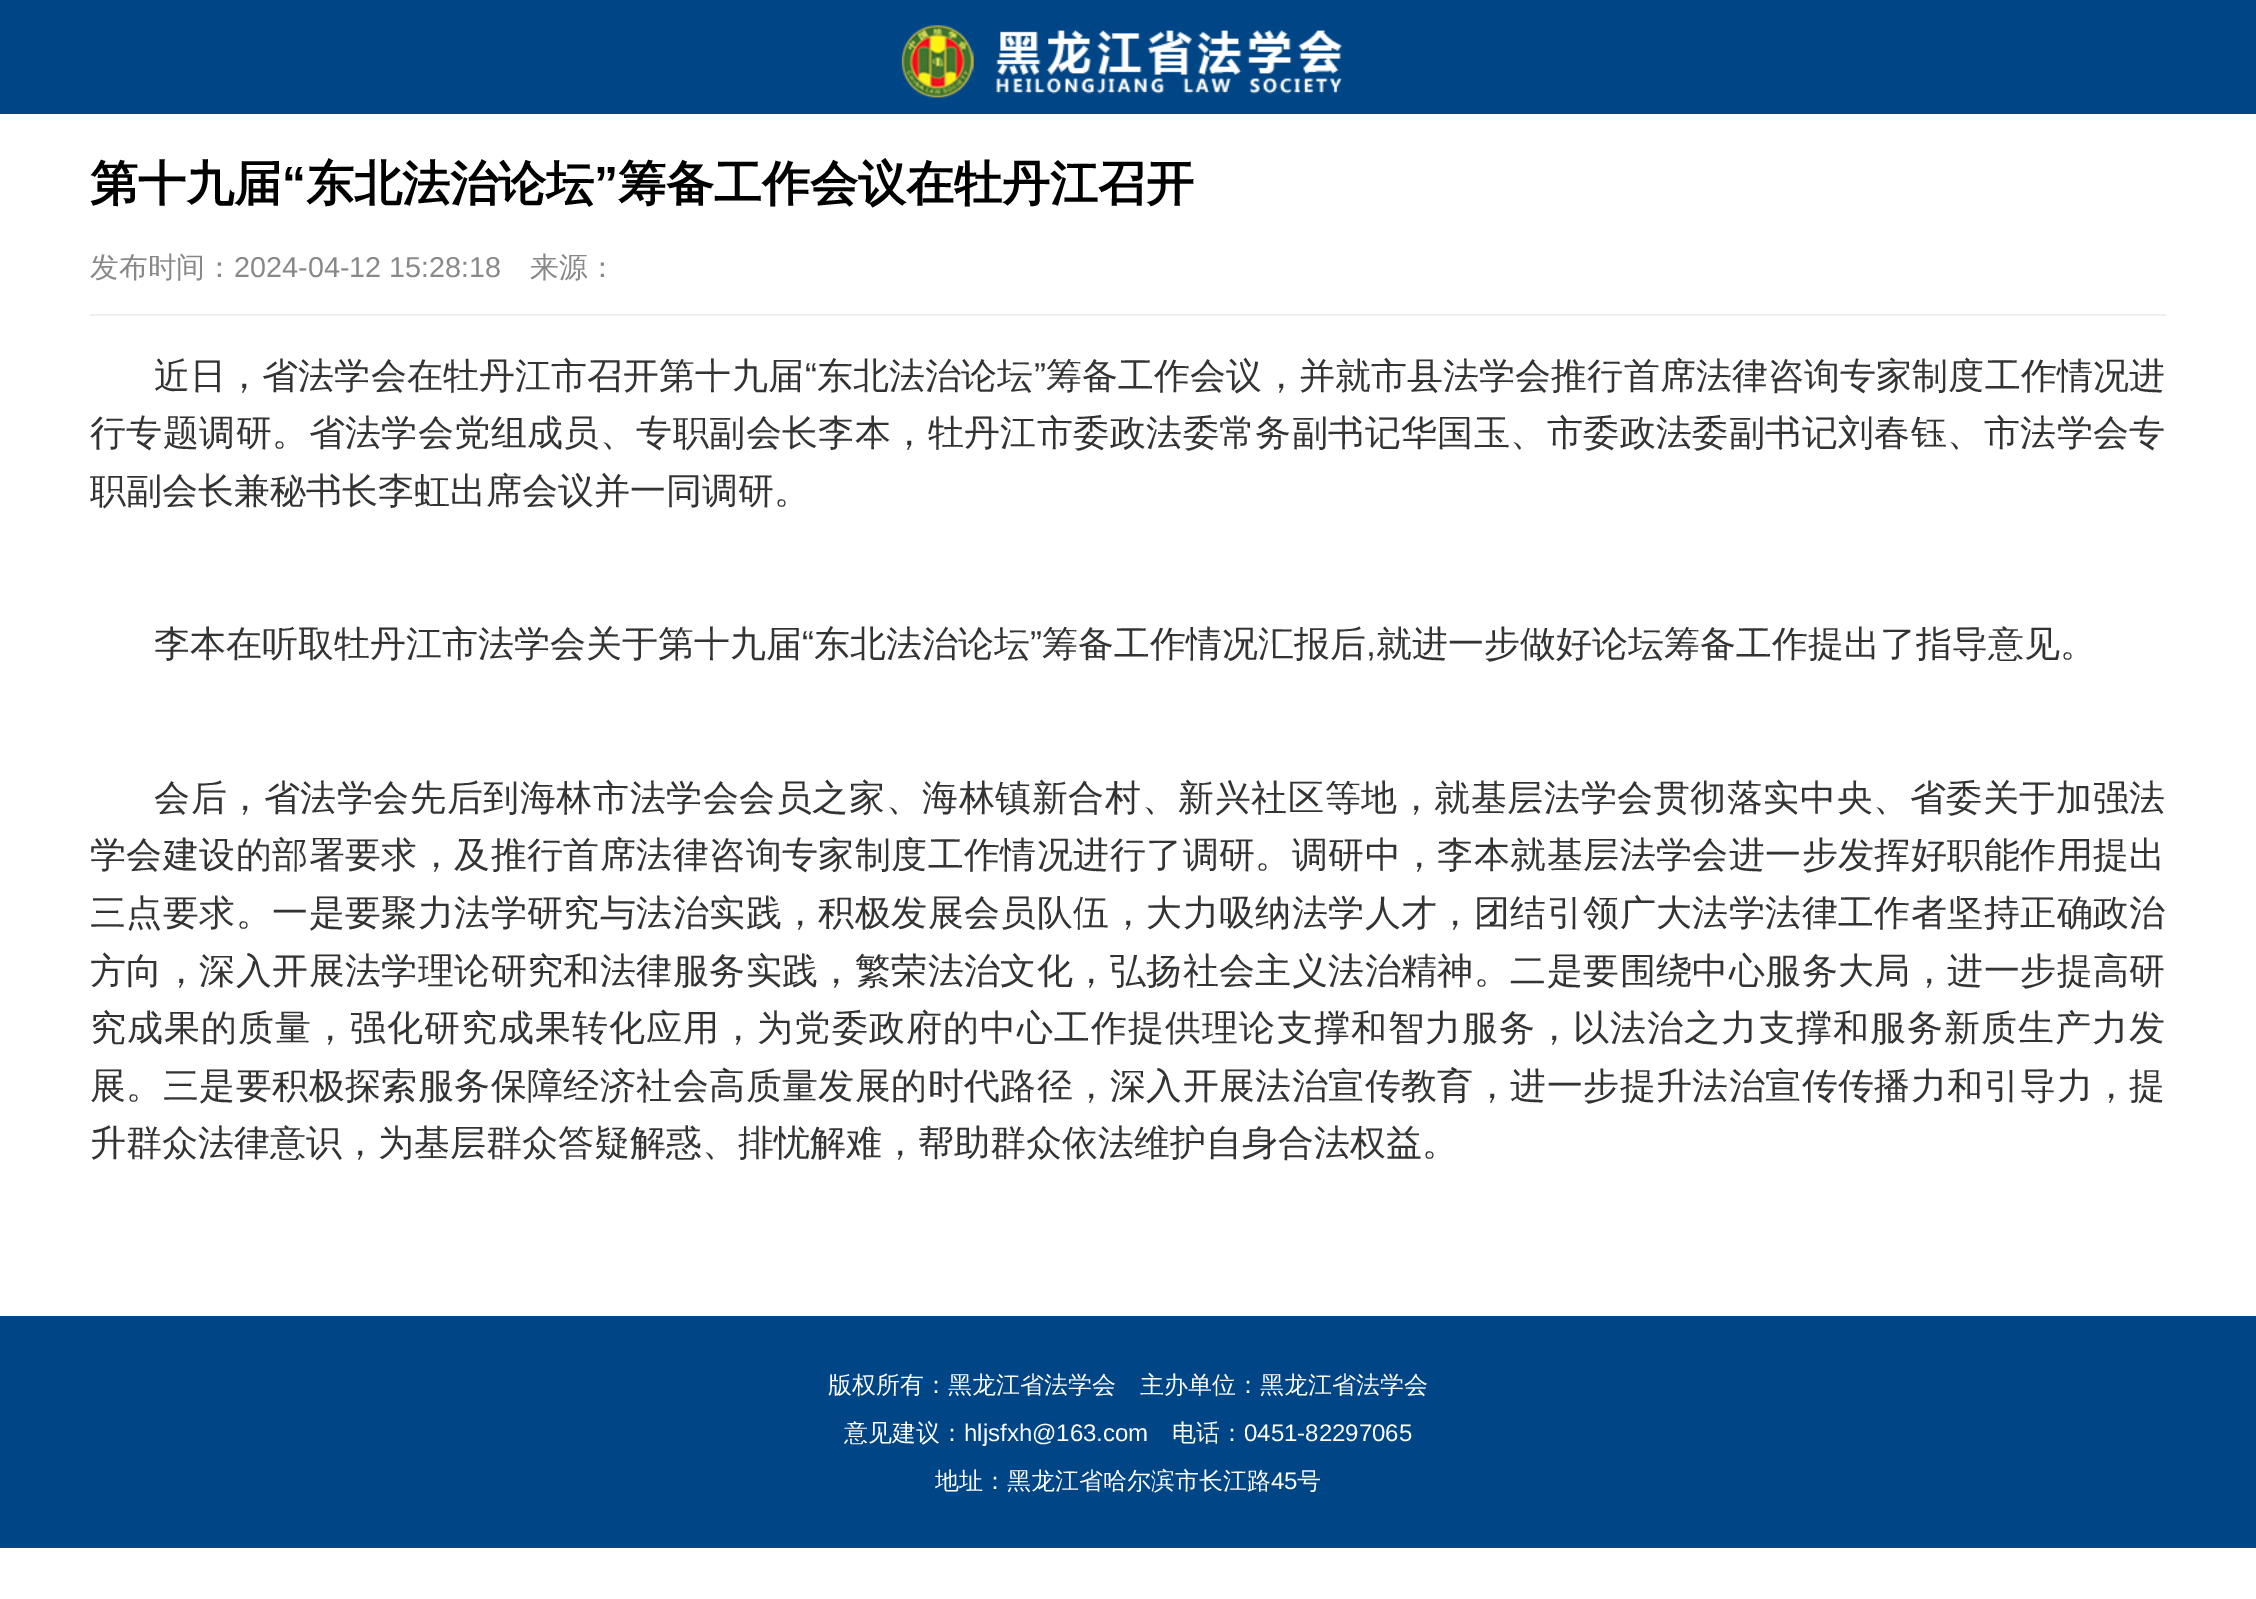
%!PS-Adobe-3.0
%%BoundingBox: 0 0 2256 1599
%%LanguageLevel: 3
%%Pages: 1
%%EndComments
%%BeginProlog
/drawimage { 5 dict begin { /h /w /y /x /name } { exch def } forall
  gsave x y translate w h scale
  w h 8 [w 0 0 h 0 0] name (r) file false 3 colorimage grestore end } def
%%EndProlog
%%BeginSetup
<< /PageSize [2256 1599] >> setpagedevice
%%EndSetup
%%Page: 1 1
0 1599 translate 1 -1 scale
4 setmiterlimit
1 setgray
0 0 2256 1599 rectfill
0 0.275 0.525 setrgbcolor
0 0 2256 114 rectfill
(images/1.raw) 901 25 442 73 drawimage
0.933 setgray
90 314 2076 2 rectfill
0 0.275 0.525 setrgbcolor
0 1316 2256 232 rectfill
/WenQuanYiZenHei-Bold [48 0 0 -48 0 0] selectfont
0 setgray
90 200 moveto (第十九届) show
/LiberationSans-Bold [48 0 0 -48 0 0] selectfont
282 200 moveto (“) show
/WenQuanYiZenHei-Bold [48 0 0 -48 0 0] selectfont
306 200 moveto (东北法治论坛) show
/LiberationSans-Bold [48 0 0 -48 0 0] selectfont
594 200 moveto (”) show
/WenQuanYiZenHei-Bold [48 0 0 -48 0 0] selectfont
618 200 moveto (筹备工作会议在牡丹江召开) show
/WenQuanYiZenHei-Medium [28.75 0 0 -28.75 0 0] selectfont
0.533 setgray
90 277 moveto (发布时间：) show
/LiberationSans-Regular [28.75 0 0 -28.75 0 0] selectfont
234 277 moveto (2024-04-12 15:28:18) show
/WenQuanYiZenHei-Medium [28.75 0 0 -28.75 0 0] selectfont
530 277 moveto (来源：) show
/WenQuanYiZenHei-Medium [36 0 0 -36 0 0] selectfont
0.2 setgray
154 388 moveto 0.1 0 (近日，省法学会在牡丹江市召开第十九届) ashow
/LiberationSans-Regular [36 0 0 -36 0 0] selectfont
805 388 moveto 0.1 0 (“) ashow
/WenQuanYiZenHei-Medium [36 0 0 -36 0 0] selectfont
817 388 moveto 0.1 0 (东北法治论坛) ashow
/LiberationSans-Regular [36 0 0 -36 0 0] selectfont
1034 388 moveto 0.1 0 (”) ashow
/WenQuanYiZenHei-Medium [36 0 0 -36 0 0] selectfont
1046 388 moveto 0.1 0 (筹备工作会议，并就市县法学会推行首席法律咨询专家制度工作情况进) ashow
90 445 moveto 0.42 0 (行专题调研。省法学会党组成员、专职副会长李本，牡丹江市委政法委常务副书记华国玉、市委政法委副书记刘春钰、市法学会专) ashow
90 503 moveto (职副会长兼秘书长李虹出席会议并一同调研。) show
154 656 moveto (李本在听取牡丹江市法学会关于第十九届) show
/LiberationSans-Regular [36 0 0 -36 0 0] selectfont
802 656 moveto (“) show
/WenQuanYiZenHei-Medium [36 0 0 -36 0 0] selectfont
814 656 moveto (东北法治论坛) show
/LiberationSans-Regular [36 0 0 -36 0 0] selectfont
1030 656 moveto (”) show
/WenQuanYiZenHei-Medium [36 0 0 -36 0 0] selectfont
1042 656 moveto (筹备工作情况汇报后) show
1376 656 moveto (就进一步做好论坛筹备工作提出了指导意见。) show
/LiberationSans-Regular [36 0 0 -36 0 0] selectfont
1366 656 moveto (,) show
/WenQuanYiZenHei-Medium [36 0 0 -36 0 0] selectfont
154 810 moveto 0.58 0 (会后，省法学会先后到海林市法学会会员之家、海林镇新合村、新兴社区等地，就基层法学会贯彻落实中央、省委关于加强法) ashow
90 867 moveto 0.42 0 (学会建设的部署要求，及推行首席法律咨询专家制度工作情况进行了调研。调研中，李本就基层法学会进一步发挥好职能作用提出) ashow
90 925 moveto 0.42 0 (三点要求。一是要聚力法学研究与法治实践，积极发展会员队伍，大力吸纳法学人才，团结引领广大法学法律工作者坚持正确政治) ashow
90 983 moveto 0.42 0 (方向，深入开展法学理论研究和法律服务实践，繁荣法治文化，弘扬社会主义法治精神。二是要围绕中心服务大局，进一步提高研) ashow
90 1040 moveto 1.08 0 (究成果的质量，强化研究成果转化应用，为党委政府的中心工作提供理论支撑和智力服务，以法治之力支撑和服务新质生产力发) ashow
90 1098 moveto 0.42 0 (展。三是要积极探索服务保障经济社会高质量发展的时代路径，深入开展法治宣传教育，进一步提升法治宣传传播力和引导力，提) ashow
90 1155 moveto (升群众法律意识，为基层群众答疑解惑、排忧解难，帮助群众依法维护自身合法权益。) show
/WenQuanYiZenHei-Medium [24 0 0 -24 0 0] selectfont
1 setgray
828 1393 moveto (版权所有：黑龙江省法学会) show
1140 1393 moveto (主办单位：黑龙江省法学会) show
844 1441 moveto (意见建议：) show
/LiberationSans-Regular [24 0 0 -24 0 0] selectfont
964 1441 moveto (hljsfxh@163.com) show
/WenQuanYiZenHei-Medium [24 0 0 -24 0 0] selectfont
1172 1441 moveto (电话：) show
/LiberationSans-Regular [24 0 0 -24 0 0] selectfont
1244 1441 moveto (0451-82297065) show
/WenQuanYiZenHei-Medium [24 0 0 -24 0 0] selectfont
935 1489 moveto (地址：黑龙江省哈尔滨市长江路) show
/LiberationSans-Regular [24 0 0 -24 0 0] selectfont
1271 1489 moveto (45) show
/WenQuanYiZenHei-Medium [24 0 0 -24 0 0] selectfont
1297 1489 moveto (号) show
showpage
%%EOF
